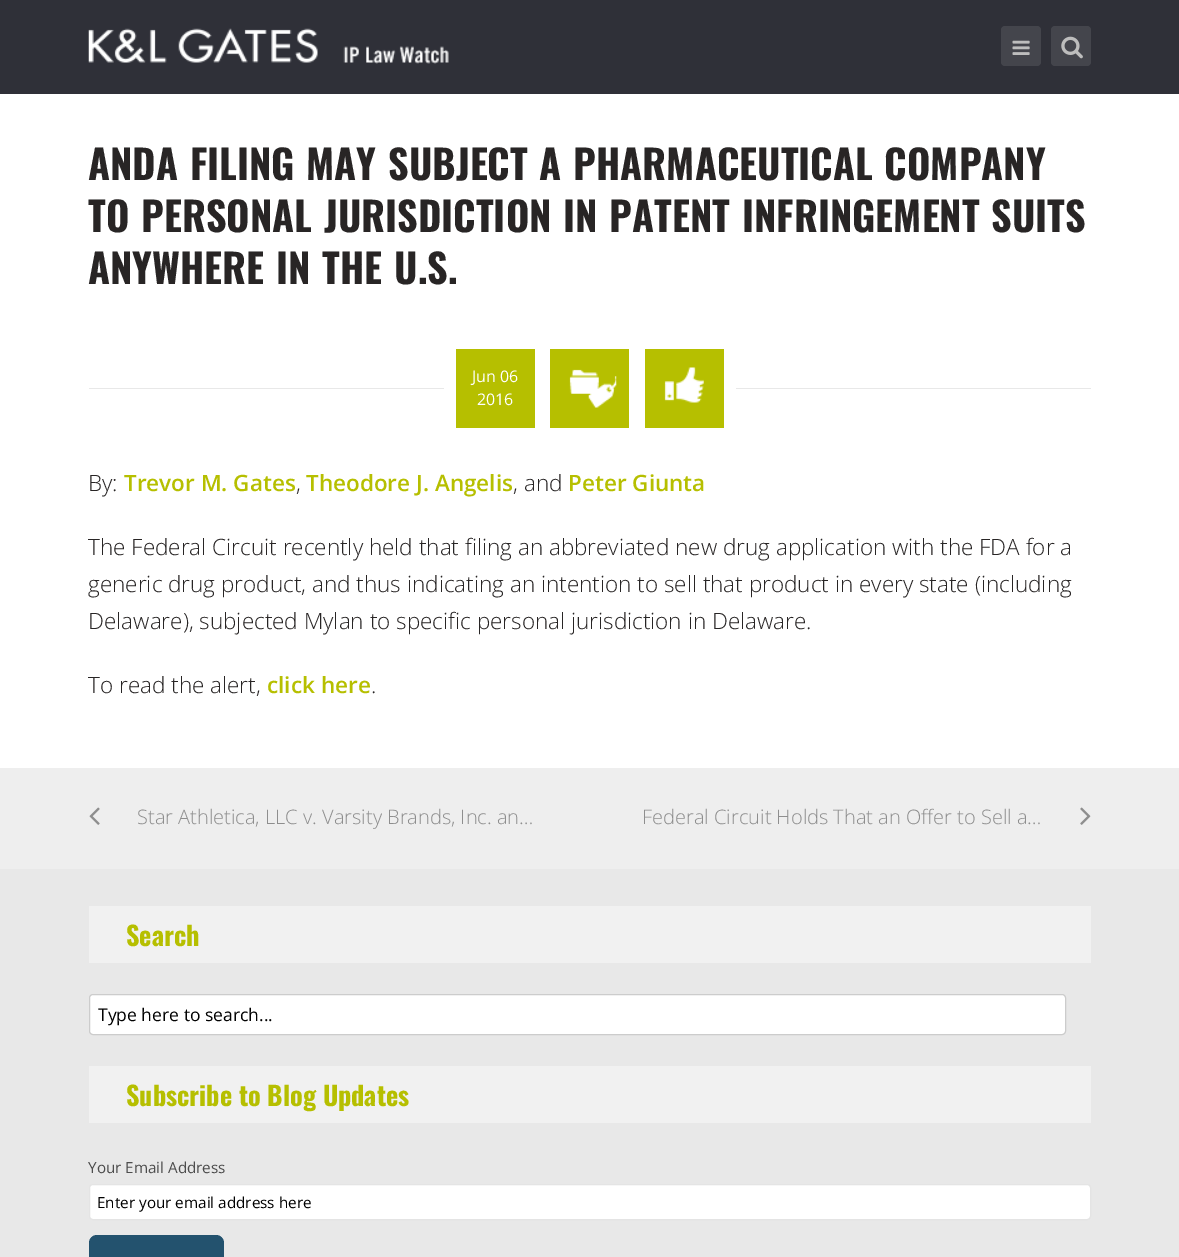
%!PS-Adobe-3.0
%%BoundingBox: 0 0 1179 1257
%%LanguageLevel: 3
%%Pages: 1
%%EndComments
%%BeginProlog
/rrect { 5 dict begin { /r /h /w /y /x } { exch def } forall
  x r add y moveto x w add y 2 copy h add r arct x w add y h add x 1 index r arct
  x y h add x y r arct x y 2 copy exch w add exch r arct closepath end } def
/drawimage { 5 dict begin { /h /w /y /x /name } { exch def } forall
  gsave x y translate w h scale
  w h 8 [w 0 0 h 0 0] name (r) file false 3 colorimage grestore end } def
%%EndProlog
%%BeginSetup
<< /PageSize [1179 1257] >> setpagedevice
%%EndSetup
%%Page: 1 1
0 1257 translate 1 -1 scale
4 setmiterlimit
1 setgray
0 0 1179 1257 rectfill
0.184 0.188 0.22 setrgbcolor
0 0 1179 94 rectfill
(images/1.raw) 88 28 361 36 drawimage
0.267 0.271 0.298 setrgbcolor
1001 26 40 40 4 rrect fill
(images/2.raw) 1012 40 18 15 drawimage
1051 26 40 40 4 rrect fill
(images/3.raw) 1061 36 22 23 drawimage
0.91 setgray
89 388 1002 1 rectfill
1 setgray
444 388 292 1 rectfill
0.714 0.749 0 setrgbcolor
456 349 79 79 rectfill
550 349 79 79 rectfill
(images/4.raw) 569 369 48 39 drawimage
645 349 79 79 rectfill
(images/5.raw) 664 367 40 36 drawimage
0.933 setgray
newpath 826 869 moveto 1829 869 lineto 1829 768 lineto 1091 768 lineto 1091 869 lineto closepath fill
newpath -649 768 moveto -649 869 lineto 354 869 lineto 89 869 lineto 89 768 lineto closepath fill
89 768 1002 101 rectfill
(images/6.raw) 89 807 11 18 drawimage
(images/7.raw) 1080 807 11 18 drawimage
0.91 setgray
0 869 89 388 rectfill
89 869 1090 388 rectfill
0.945 setgray
89 906 1002 57 rectfill
1 setgray
89.5 994.5 976 40 3.5 rrect gsave fill grestore
0.8 setgray
stroke
0.945 setgray
89 1066 1002 57 rectfill
1 setgray
89.5 1184.5 1001 35 3.5 rrect gsave fill grestore
0.894 setgray
stroke
0.137 0.322 0.431 setrgbcolor
89 1235 135 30 8 rrect fill
/Oswald-Bold [40 0 0 -40 0 0] selectfont
0.157 0.145 0.145 setrgbcolor
88 180 moveto 1.5 0 32 (ANDA FILING MAY SUBJECT A PHARMACEUTICAL COMPANY) widthshow
88 232 moveto 1.5 0 32 (TO PERSONAL JURISDICTION IN PATENT INFRINGEMENT SUITS) widthshow
88 284 moveto 1.5 0 32 (ANYWHERE IN THE U.S.) widthshow
/OpenSans-Regular [16 0 0 -16 0 0] selectfont
1 setgray
472 382 moveto (Jun 06) show
477 405 moveto (2016) show
/OpenSans-Light [22.5 0 0 -22.5 0 0] selectfont
0.157 0.145 0.145 setrgbcolor
88 491 moveto (By:) show
/OpenSans-SemiBold [22.5 0 0 -22.5 0 0] selectfont
0.714 0.749 0 setrgbcolor
124 491 moveto (Trevor M. Gates) show
/OpenSans-Light [22.5 0 0 -22.5 0 0] selectfont
0.157 0.145 0.145 setrgbcolor
296 491 moveto (,) show
/OpenSans-SemiBold [22.5 0 0 -22.5 0 0] selectfont
0.714 0.749 0 setrgbcolor
306 491 moveto (Theodore J. Angelis) show
/OpenSans-Light [22.5 0 0 -22.5 0 0] selectfont
0.157 0.145 0.145 setrgbcolor
513 491 moveto (, and) show
/OpenSans-SemiBold [22.5 0 0 -22.5 0 0] selectfont
0.714 0.749 0 setrgbcolor
568 491 moveto (Peter Giunta) show
/OpenSans-Light [22.5 0 0 -22.5 0 0] selectfont
0.157 0.145 0.145 setrgbcolor
88 555 moveto (The Federal Circuit recently held that filing an abbreviated new drug application with the FDA for a) show
88 592 moveto (generic drug product, and thus indicating an intention to sell that product in every state \(including) show
88 629 moveto (Delaware\), subjected Mylan to specific personal jurisdiction in Delaware.) show
88 693 moveto (To read the alert,) show
/OpenSans-SemiBold [22.5 0 0 -22.5 0 0] selectfont
0.714 0.749 0 setrgbcolor
267 693 moveto (click here) show
/OpenSans-Light [22.5 0 0 -22.5 0 0] selectfont
0.157 0.145 0.145 setrgbcolor
371 693 moveto (.) show
/OpenSans-Light [20 0 0 -20 0 0] selectfont
0.557 setgray
137 824 moveto (Star Athletica, LLC v. Varsity Brands, Inc. an…) show
642 824 moveto (Federal Circuit Holds That an Offer to Sell a…) show
/Oswald-Bold [26.25 0 0 -26.25 0 0] selectfont
0.714 0.749 0 setrgbcolor
126 946 moveto (Search) show
/OpenSans-Regular [17.5 0 0 -17.5 0 0] selectfont
0.004 setgray
98 1021 moveto (Type here to search...) show
/Oswald-Bold [26.25 0 0 -26.25 0 0] selectfont
0.714 0.749 0 setrgbcolor
126 1106 moveto (Subscribe to Blog Updates) show
/OpenSans-Regular [15.25 0 0 -15.25 0 0] selectfont
0.302 setgray
88 1173 moveto (Your Email Address) show
0.004 setgray
97 1208 moveto (Enter your email address here) show
showpage
%%EOF
